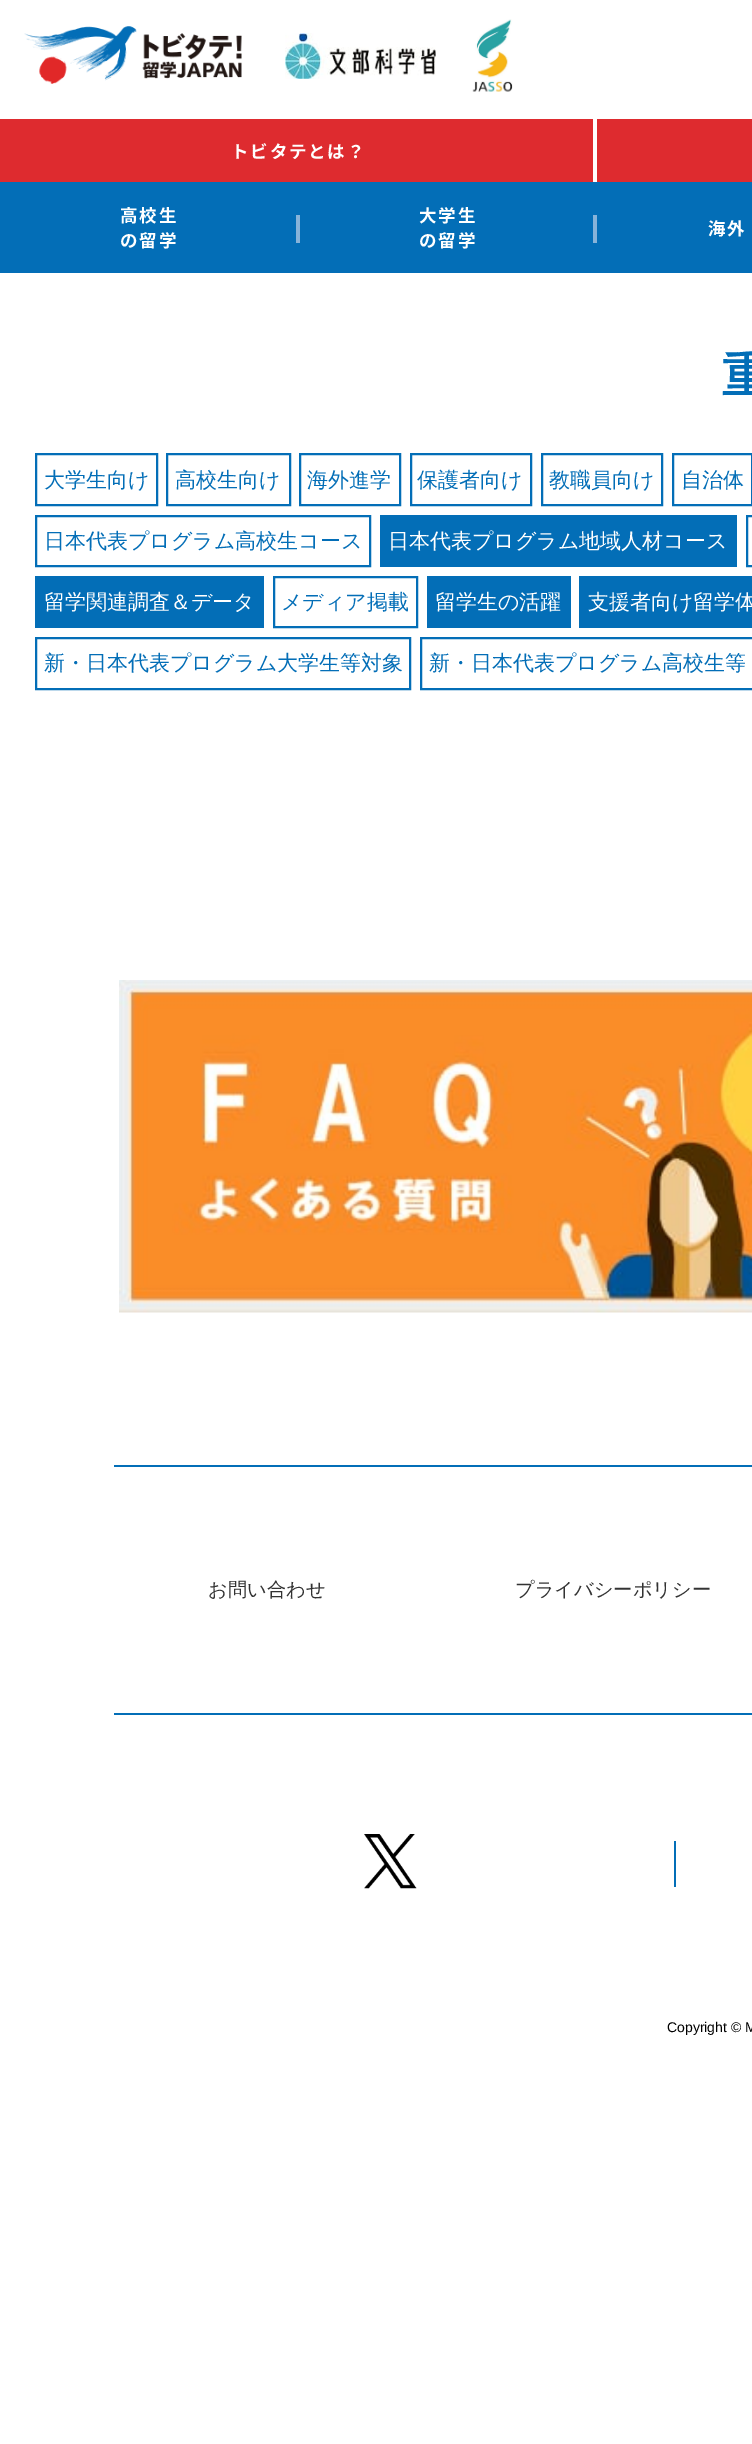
%!PS-Adobe-3.0
%%BoundingBox: 0 0 752 2444
%%LanguageLevel: 3
%%Pages: 1
%%EndComments
%%BeginProlog
/drawimage { 5 dict begin { /h /w /y /x /name } { exch def } forall
  gsave x y translate w h scale
  w h 8 [w 0 0 h 0 0] name (r) file false 3 colorimage grestore end } def
%%EndProlog
%%BeginSetup
<< /PageSize [752 2444] >> setpagedevice
%%EndSetup
%%Page: 1 1
0 2444 translate 1 -1 scale
4 setmiterlimit
1 setgray
0 0 752 2444 rectfill
(images/1.raw) 24 26 218 58 drawimage
(images/2.raw) 285 33 151 46 drawimage
(images/3.raw) 472 19 41 73 drawimage
0.871 0.169 0.184 setrgbcolor
0 119 752 63 rectfill
1 setgray
593 119 4 63 rectfill
0.012 0.431 0.718 setrgbcolor
0 182 752 91 rectfill
0.529 0.702 0.851 setrgbcolor
296 215 4 28 rectfill
593 215 4 28 rectfill
0.012 0.431 0.718 setrgbcolor
2 setlinewidth
36 454 121 51 rectstroke
167 454 123 51 rectstroke
300 454 100 51 rectstroke
411 454 120 51 rectstroke
542 454 120 51 rectstroke
673 454 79 51 rectstroke
36 516 334 50 rectstroke
380 515 357 52 rectfill
747 516 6 50 rectstroke
35 576 229 52 rectfill
274 577 143 50 rectstroke
427 576 144 52 rectfill
579 576 173 52 rectfill
36 638 374 51 rectstroke
421 638 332 51 rectstroke
114 1465 638 2 rectfill
(images/4.raw) 119 980 633 333 drawimage
114 1713 638 2 rectfill
(images/5.raw) 364 1834 53 55 drawimage
674 1841 2 46 rectfill
/NotoSansJP-Bold [17.5 0 0 -17.5 0 0] selectfont
1 setgray
231 158 moveto 1.75 0 (トビタテとは？) ashow
120 222 moveto 1.75 0 (高校生) ashow
120 247 moveto 1.75 0 (の留学) ashow
419 222 moveto 1.75 0 (大学生) ashow
419 247 moveto 1.75 0 (の留学) ashow
708 235 moveto 1.75 0 (海外) ashow
/WenQuanYiZenHei-Bold [49 0 0 -49 0 0] selectfont
0.012 0.431 0.718 setrgbcolor
722 392 moveto (重) show
/WenQuanYiZenHei-Medium [21 0 0 -21 0 0] selectfont
44 487 moveto (大学生向け) show
175 487 moveto (高校生向け) show
307 487 moveto (海外進学) show
417 487 moveto (保護者向け) show
549 487 moveto (教職員向け) show
681 487 moveto (自治体) show
44 548 moveto (日本代表プログラム高校生コース) show
1 setgray
388 548 moveto (日本代表プログラム地域人材コース) show
44 609 moveto (留学関連調査＆データ) show
0.012 0.431 0.718 setrgbcolor
281 609 moveto (メディア掲載) show
1 setgray
435 609 moveto (留学生の活躍) show
588 609 moveto (支援者向け留学体) show
0.012 0.431 0.718 setrgbcolor
44 670 moveto (新・日本代表プログラム大学生等対象) show
429 670 moveto (新・日本代表プログラム高校生等) show
/WenQuanYiZenHei-Medium [19.25 0 0 -19.25 0 0] selectfont
0.2 setgray
208 1596 moveto (お問い合わせ) show
515 1596 moveto (プライバシーポリシー) show
/LiberationSans-Regular [14 0 0 -14 0 0] selectfont
0 setgray
667 2032 moveto (Copyright © M) show
showpage
%%EOF
